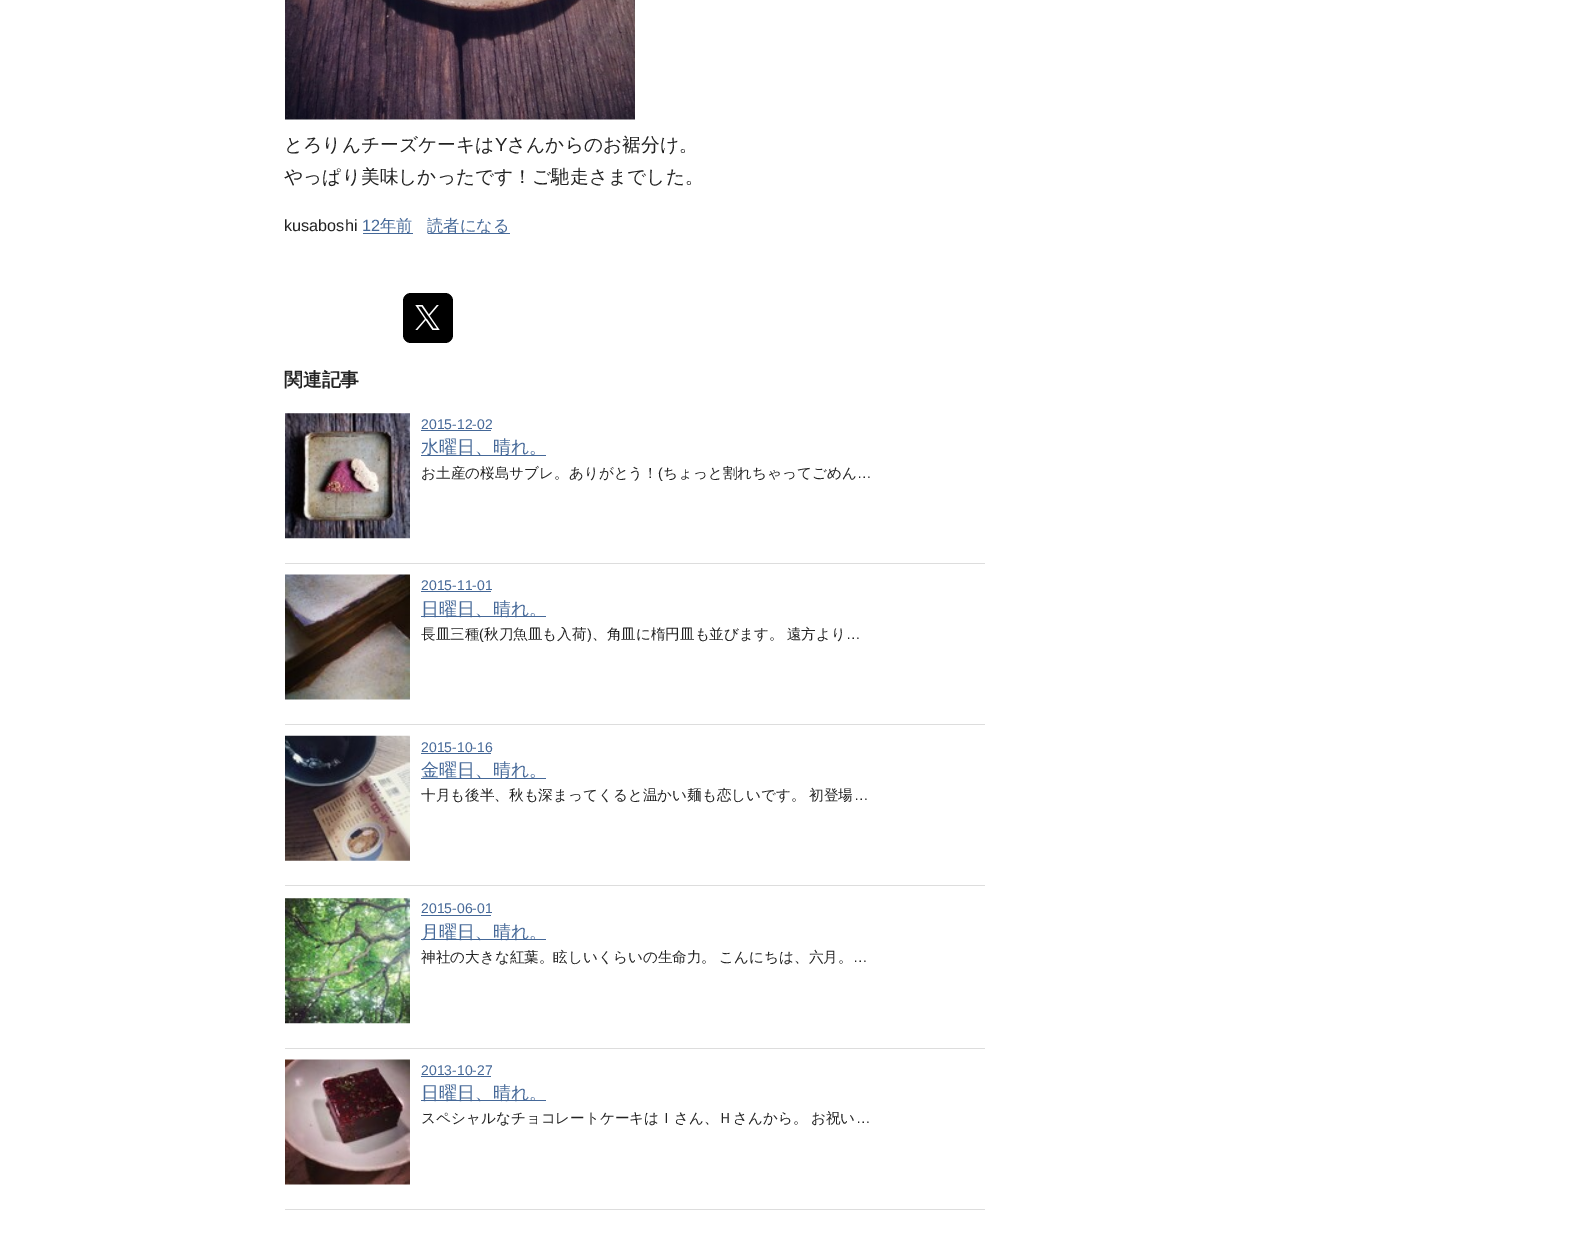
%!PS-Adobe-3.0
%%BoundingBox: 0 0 1581 1237
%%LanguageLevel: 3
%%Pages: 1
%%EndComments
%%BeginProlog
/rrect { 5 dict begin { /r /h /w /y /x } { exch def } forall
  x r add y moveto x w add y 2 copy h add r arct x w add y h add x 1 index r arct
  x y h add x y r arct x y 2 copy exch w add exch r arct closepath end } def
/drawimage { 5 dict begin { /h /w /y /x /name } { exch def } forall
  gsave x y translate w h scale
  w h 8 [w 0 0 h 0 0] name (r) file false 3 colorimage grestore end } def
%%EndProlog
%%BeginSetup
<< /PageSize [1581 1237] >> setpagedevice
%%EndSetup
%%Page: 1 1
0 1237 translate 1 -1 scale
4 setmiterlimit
1 setgray
0 0 1581 1237 rectfill
(images/1.raw) 285 0 350 120 drawimage
0.271 0.408 0.596 setrgbcolor
363 233 50 1 rectfill
428 233 82 1 rectfill
0 setgray
403 293 50 50 8 rrect fill
(images/2.raw) 415 305 25 25 drawimage
0.867 setgray
285 563 700 1 rectfill
(images/3.raw) 285 413 125 126 drawimage
0.271 0.408 0.596 setrgbcolor
421 430 70 1 rectfill
421 455 125 1 rectfill
0.867 setgray
285 724 700 1 rectfill
(images/4.raw) 285 574 125 126 drawimage
0.271 0.408 0.596 setrgbcolor
421 591 70 1 rectfill
421 616 125 1 rectfill
0.867 setgray
285 885 700 1 rectfill
(images/5.raw) 285 735 125 126 drawimage
0.271 0.408 0.596 setrgbcolor
421 753 70 1 rectfill
421 778 125 1 rectfill
0.867 setgray
285 1048 700 1 rectfill
(images/6.raw) 285 898 125 126 drawimage
0.271 0.408 0.596 setrgbcolor
421 915 70 1 rectfill
421 939 125 1 rectfill
0.867 setgray
285 1209 700 1 rectfill
(images/7.raw) 285 1059 125 126 drawimage
0.271 0.408 0.596 setrgbcolor
421 1076 70 1 rectfill
421 1100 125 1 rectfill
/WenQuanYiZenHei-Medium [18.75 0 0 -18.75 0 0] selectfont
0.133 setgray
284 151 moveto (とろりんチーズケーキは) show
/LiberationSans-Regular [18.75 0 0 -18.75 0 0] selectfont
495 151 moveto (Y) show
/WenQuanYiZenHei-Medium [18.75 0 0 -18.75 0 0] selectfont
507 151 moveto (さんからのお裾分け。) show
284 183 moveto (やっぱり美味しかったです！ご馳走さまでした。) show
/LiberationSans-Regular [16.25 0 0 -16.25 0 0] selectfont
284 231 moveto (kusaboshi) show
0.271 0.408 0.596 setrgbcolor
362 231 moveto (12) show
/WenQuanYiZenHei-Medium [16.25 0 0 -16.25 0 0] selectfont
380 231 moveto (年前) show
427 231 moveto (読者になる) show
/WenQuanYiZenHei-Bold [18.75 0 0 -18.75 0 0] selectfont
0.133 setgray
284 386 moveto (関連記事) show
/LiberationSans-Regular [14 0 0 -14 0 0] selectfont
0.271 0.408 0.596 setrgbcolor
421 429 moveto (2015-12-02) show
/WenQuanYiZenHei-Medium [18 0 0 -18 0 0] selectfont
421 453 moveto (水曜日、晴れ。) show
/WenQuanYiZenHei-Medium [14.6 0 0 -14.6 0 0] selectfont
0.133 setgray
421 478 moveto (お土産の桜島サブレ。ありがとう！) show
/LiberationSans-Regular [14.6 0 0 -14.6 0 0] selectfont
658 478 moveto (\() show
/WenQuanYiZenHei-Medium [14.6 0 0 -14.6 0 0] selectfont
663 478 moveto (ちょっと割れちゃってごめん) show
/LiberationSans-Regular [14.6 0 0 -14.6 0 0] selectfont
857 478 moveto (…) show
/LiberationSans-Regular [14 0 0 -14 0 0] selectfont
0.271 0.408 0.596 setrgbcolor
421 590 moveto (2015-11-01) show
/WenQuanYiZenHei-Medium [18 0 0 -18 0 0] selectfont
421 615 moveto (日曜日、晴れ。) show
/WenQuanYiZenHei-Medium [14.6 0 0 -14.6 0 0] selectfont
0.133 setgray
421 639 moveto (長皿三種) show
/LiberationSans-Regular [14.6 0 0 -14.6 0 0] selectfont
479 639 moveto (\() show
/WenQuanYiZenHei-Medium [14.6 0 0 -14.6 0 0] selectfont
484 639 moveto (秋刀魚皿も入荷) show
/LiberationSans-Regular [14.6 0 0 -14.6 0 0] selectfont
587 639 moveto (\)) show
/WenQuanYiZenHei-Medium [14.6 0 0 -14.6 0 0] selectfont
592 639 moveto -1 0 32 (、角皿に楕円皿も並びます。 遠方より) widthshow
/LiberationSans-Regular [14.6 0 0 -14.6 0 0] selectfont
846 639 moveto (…) show
/LiberationSans-Regular [14 0 0 -14 0 0] selectfont
0.271 0.408 0.596 setrgbcolor
421 752 moveto (2015-10-16) show
/WenQuanYiZenHei-Medium [18 0 0 -18 0 0] selectfont
421 776 moveto (金曜日、晴れ。) show
/WenQuanYiZenHei-Medium [14.6 0 0 -14.6 0 0] selectfont
0.133 setgray
421 800 moveto -1 0 32 (十月も後半、秋も深まってくると温かい麺も恋しいです。 初登場) widthshow
/LiberationSans-Regular [14.6 0 0 -14.6 0 0] selectfont
854 800 moveto (…) show
/LiberationSans-Regular [14 0 0 -14 0 0] selectfont
0.271 0.408 0.596 setrgbcolor
421 913 moveto (2015-06-01) show
/WenQuanYiZenHei-Medium [18 0 0 -18 0 0] selectfont
421 938 moveto (月曜日、晴れ。) show
/WenQuanYiZenHei-Medium [14.6 0 0 -14.6 0 0] selectfont
0.133 setgray
421 962 moveto -1 0 32 (神社の大きな紅葉。眩しいくらいの生命力。 こんにちは、六月。) widthshow
/LiberationSans-Regular [14.6 0 0 -14.6 0 0] selectfont
853 962 moveto (…) show
/LiberationSans-Regular [14 0 0 -14 0 0] selectfont
0.271 0.408 0.596 setrgbcolor
421 1075 moveto (2013-10-27) show
/WenQuanYiZenHei-Medium [18 0 0 -18 0 0] selectfont
421 1099 moveto (日曜日、晴れ。) show
/WenQuanYiZenHei-Medium [14.6 0 0 -14.6 0 0] selectfont
0.133 setgray
421 1123 moveto -1 0 32 (スペシャルなチョコレートケーキはＩさん、Ｈさんから。 お祝い) widthshow
/LiberationSans-Regular [14.6 0 0 -14.6 0 0] selectfont
856 1123 moveto (…) show
showpage
%%EOF
